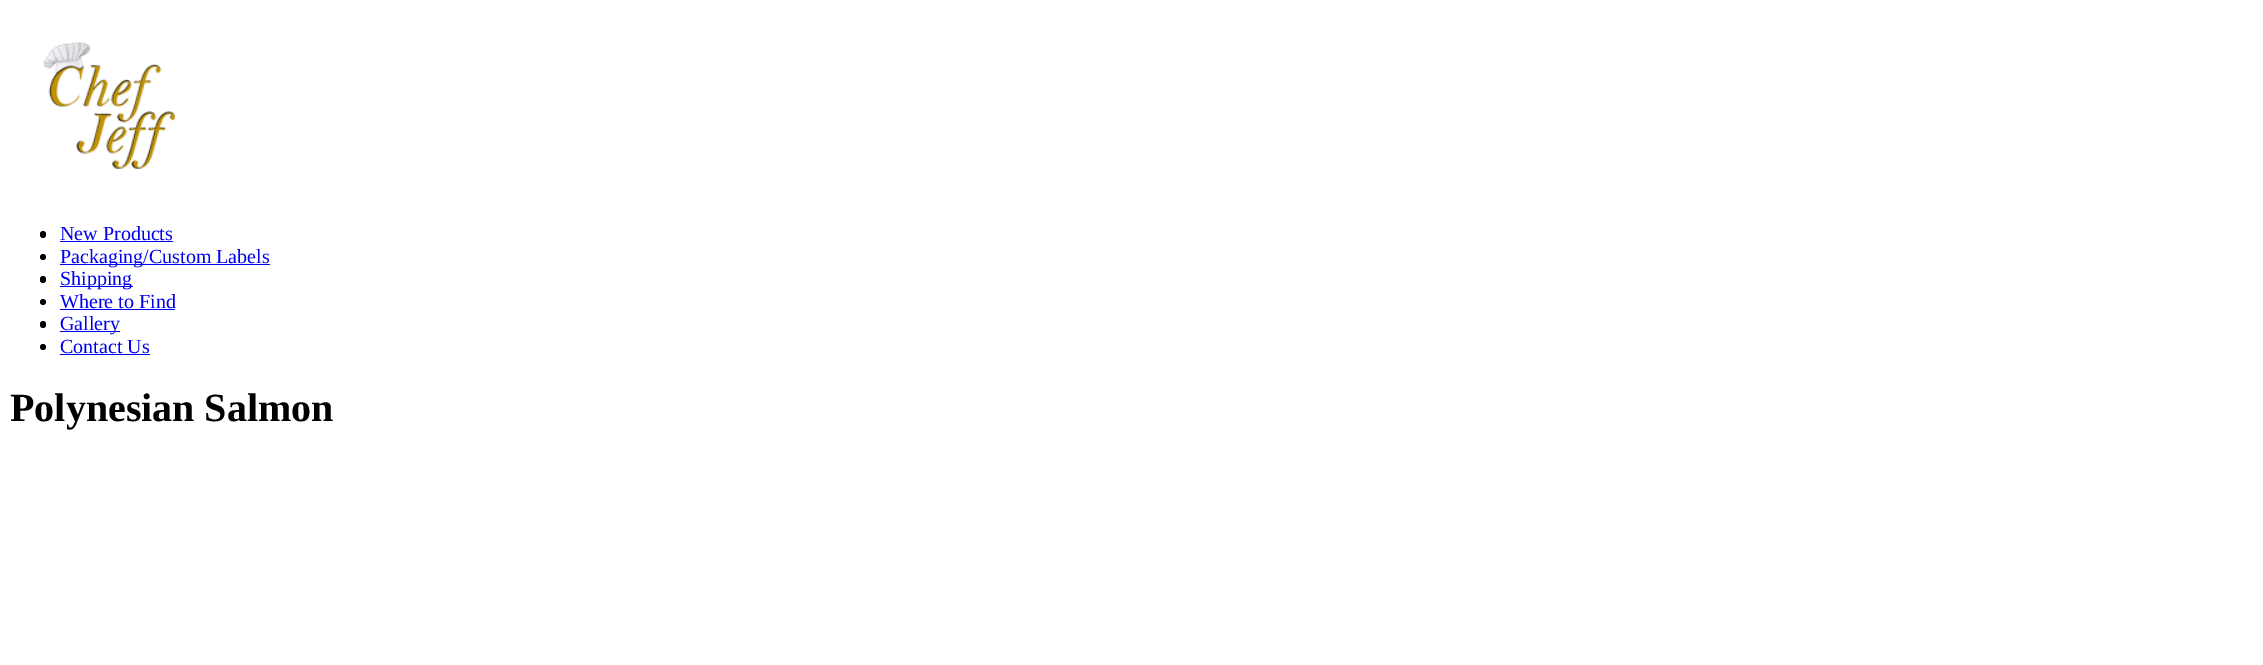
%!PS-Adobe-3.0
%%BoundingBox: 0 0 2263 665
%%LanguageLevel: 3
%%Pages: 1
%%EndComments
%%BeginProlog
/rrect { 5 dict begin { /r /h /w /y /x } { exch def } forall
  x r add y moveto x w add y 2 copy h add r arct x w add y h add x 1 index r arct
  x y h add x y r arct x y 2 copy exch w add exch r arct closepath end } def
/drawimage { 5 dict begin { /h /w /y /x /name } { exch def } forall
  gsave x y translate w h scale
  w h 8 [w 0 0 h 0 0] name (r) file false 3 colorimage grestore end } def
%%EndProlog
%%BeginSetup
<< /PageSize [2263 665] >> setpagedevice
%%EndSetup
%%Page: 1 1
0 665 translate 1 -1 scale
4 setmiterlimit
1 setgray
0 0 2263 665 rectfill
(images/1.raw) 43 42 133 127 drawimage
0 setgray
40 231 6 7 3 rrect fill
0 0 0.933 setrgbcolor
60 241 113 1 rectfill
0 setgray
newpath 43 257 3 0 360 arc closepath fill
0 0 0.933 setrgbcolor
60 264 210 1 rectfill
0 setgray
40 276 6 7 3 rrect fill
0 0 0.933 setrgbcolor
60 286 73 1 rectfill
0 setgray
newpath 43 302 3 0 360 arc closepath fill
0 0 0.933 setrgbcolor
60 309 115 1 rectfill
0 setgray
40 321 6 7 3 rrect fill
0 0 0.933 setrgbcolor
60 331 60 1 rectfill
0 setgray
newpath 43 347 3 0 360 arc closepath fill
0 0 0.933 setrgbcolor
60 354 90 1 rectfill
/LiberationSerif-Regular [20 0 0 -20 0 0] selectfont
60 240 moveto (New Products) show
60 263 moveto (Packaging/Custom Labels) show
60 285 moveto (Shipping) show
60 308 moveto (Where to Find) show
60 330 moveto (Gallery) show
60 353 moveto (Contact Us) show
/LiberationSerif-Bold [40 0 0 -40 0 0] selectfont
0 setgray
10 421 moveto (Polynesian Salmon) show
showpage
%%EOF
